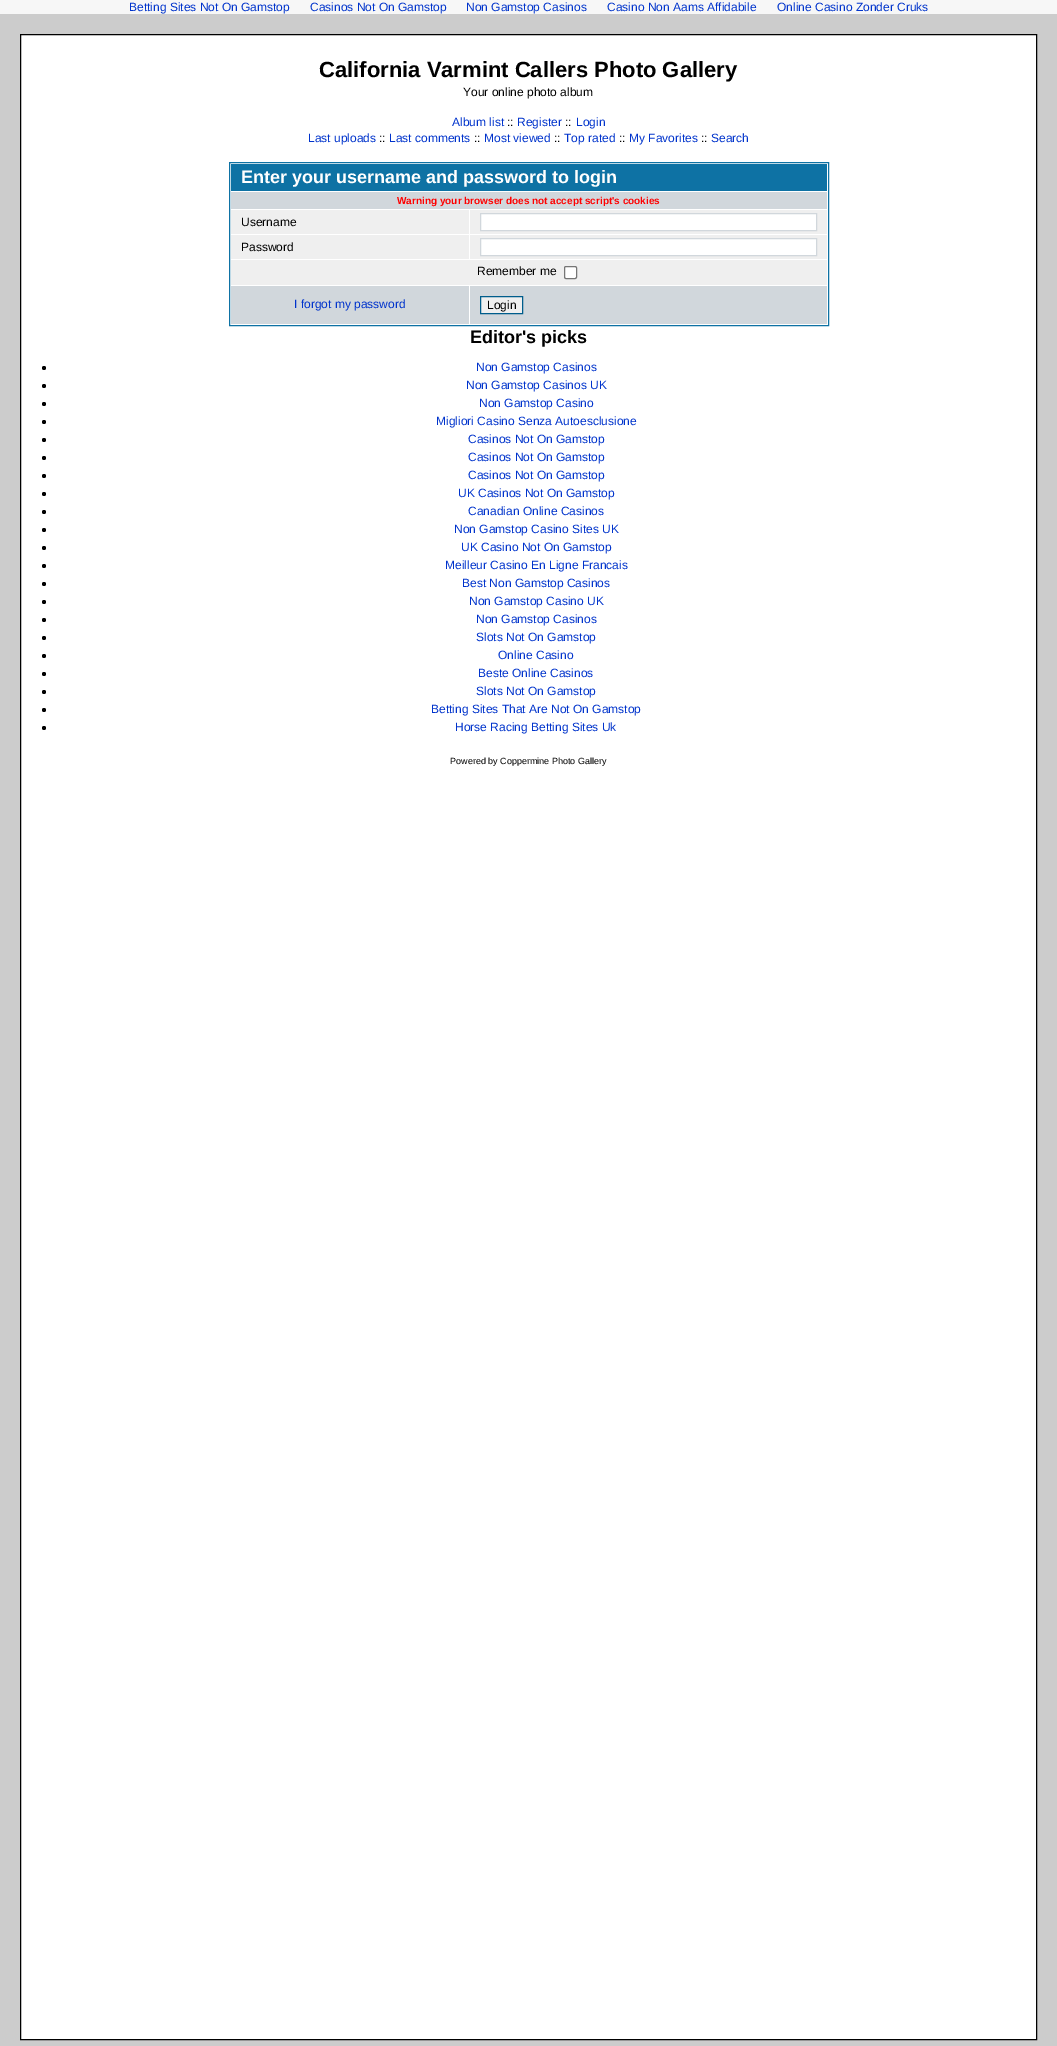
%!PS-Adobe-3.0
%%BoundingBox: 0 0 1057 2046
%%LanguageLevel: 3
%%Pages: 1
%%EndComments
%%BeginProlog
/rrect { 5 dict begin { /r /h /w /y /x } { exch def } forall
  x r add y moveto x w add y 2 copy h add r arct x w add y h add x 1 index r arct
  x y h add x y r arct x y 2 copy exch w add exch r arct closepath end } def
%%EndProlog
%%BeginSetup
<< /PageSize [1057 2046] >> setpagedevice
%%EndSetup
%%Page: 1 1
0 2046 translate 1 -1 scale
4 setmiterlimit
0.969 setgray
0 0 1057 2046 rectfill
0.8 setgray
0 14 1057 2032 rectfill
1 setgray
newpath 20.5 34.5 moveto 1036.5 34.5 lineto 1036.5 2039.5 lineto 20.5 2039.5 lineto closepath gsave fill grestore
0 setgray
stroke
0.055 0.447 0.643 setrgbcolor
229.5 162.5 599 163 rectstroke
231 164 596 27 rectfill
0.82 0.843 0.863 setrgbcolor
231 192 596 17 rectfill
0.937 setgray
231 210 238 24 rectfill
470 210 357 24 rectfill
1 setgray
newpath 480.5 213.5 moveto 816.5 213.5 lineto 816.5 230.5 lineto 480.5 230.5 lineto closepath gsave fill grestore
0.82 0.843 0.863 setrgbcolor
stroke
0.937 setgray
231 235 238 24 rectfill
470 235 357 24 rectfill
1 setgray
newpath 480.5 238.5 moveto 816.5 238.5 lineto 816.5 255.5 lineto 480.5 255.5 lineto closepath gsave fill grestore
0.82 0.843 0.863 setrgbcolor
stroke
0.937 setgray
231 260 596 25 rectfill
1 setgray
564.5 266.5 12 12 1.5 rrect gsave fill grestore
0.463 setgray
stroke
0.82 0.843 0.863 setrgbcolor
231 286 238 38 rectfill
470 286 357 38 rectfill
0.937 setgray
newpath 480.5 296.5 moveto 522.5 296.5 lineto 522.5 313.5 lineto 480.5 313.5 lineto closepath gsave fill grestore
0 0.365 0.549 setrgbcolor
stroke
0 setgray
newpath 44 368 2 0 360 arc closepath fill
newpath 44 386 2 0 360 arc closepath fill
newpath 44 404 2 0 360 arc closepath fill
newpath 44 422 2 0 360 arc closepath fill
newpath 44 440 2 0 360 arc closepath fill
newpath 44 458 2 0 360 arc closepath fill
newpath 44 476 2 0 360 arc closepath fill
newpath 44 494 2 0 360 arc closepath fill
newpath 44 512 2 0 360 arc closepath fill
newpath 44 530 2 0 360 arc closepath fill
newpath 44 548 2 0 360 arc closepath fill
newpath 44 566 2 0 360 arc closepath fill
newpath 44 584 2 0 360 arc closepath fill
newpath 44 602 2 0 360 arc closepath fill
newpath 44 620 2 0 360 arc closepath fill
newpath 44 638 2 0 360 arc closepath fill
newpath 44 656 2 0 360 arc closepath fill
newpath 44 674 2 0 360 arc closepath fill
newpath 44 692 2 0 360 arc closepath fill
newpath 44 710 2 0 360 arc closepath fill
newpath 44 728 2 0 360 arc closepath fill
/LiberationSans-Regular [12 0 0 -12 0 0] selectfont
0 0.2 0.8 setrgbcolor
129 11 moveto (Betting Sites Not On Gamstop) show
310 11 moveto (Casinos Not On Gamstop) show
466 11 moveto (Non Gamstop Casinos) show
607 11 moveto (Casino Non Aams Affidabile) show
777 11 moveto (Online Casino Zonder Cruks) show
/LiberationSans-Bold [22 0 0 -22 0 0] selectfont
0 setgray
319 77 moveto (California Varmint Callers Photo Gallery) show
/LiberationSans-Regular [12 0 0 -12 0 0] selectfont
463 96 moveto (Your online photo album) show
0 0.2 0.8 setrgbcolor
452 126 moveto (Album list) show
0 setgray
507 126 moveto (::) show
0 0.2 0.8 setrgbcolor
517 126 moveto (Register) show
0 setgray
565 126 moveto (::) show
0 0.2 0.8 setrgbcolor
576 126 moveto (Login) show
308 142 moveto (Last uploads) show
0 setgray
379 142 moveto (::) show
0 0.2 0.8 setrgbcolor
389 142 moveto (Last comments) show
0 setgray
474 142 moveto (::) show
0 0.2 0.8 setrgbcolor
484 142 moveto (Most viewed) show
0 setgray
554 142 moveto (::) show
0 0.2 0.8 setrgbcolor
564 142 moveto (Top rated) show
0 setgray
619 142 moveto (::) show
0 0.2 0.8 setrgbcolor
629 142 moveto (My Favorites) show
0 setgray
701 142 moveto (::) show
0 0.2 0.8 setrgbcolor
711 142 moveto (Search) show
/LiberationSans-Bold [18 0 0 -18 0 0] selectfont
1 setgray
241 183 moveto (Enter your username and password to login) show
/LiberationSans-Bold [10 0 0 -10 0 0] selectfont
1 0 0 setrgbcolor
397 204 moveto (Warning your browser does not accept script's cookies) show
/LiberationSans-Regular [12 0 0 -12 0 0] selectfont
0 setgray
241 226 moveto (Username) show
241 251 moveto (Password) show
477 275 moveto (Remember me) show
0 0.2 0.8 setrgbcolor
294 308 moveto (I forgot my password) show
0 setgray
487 309 moveto (Login) show
/LiberationSans-Bold [18 0 0 -18 0 0] selectfont
470 343 moveto (Editor's picks) show
/LiberationSans-Regular [12 0 0 -12 0 0] selectfont
0 0.2 0.8 setrgbcolor
476 371 moveto (Non Gamstop Casinos) show
466 389 moveto (Non Gamstop Casinos UK) show
479 407 moveto (Non Gamstop Casino) show
436 425 moveto (Migliori Casino Senza Autoesclusione) show
468 443 moveto (Casinos Not On Gamstop) show
468 461 moveto (Casinos Not On Gamstop) show
468 479 moveto (Casinos Not On Gamstop) show
458 497 moveto (UK Casinos Not On Gamstop) show
468 515 moveto (Canadian Online Casinos) show
454 533 moveto (Non Gamstop Casino Sites UK) show
461 551 moveto (UK Casino Not On Gamstop) show
445 569 moveto (Meilleur Casino En Ligne Francais) show
462 587 moveto (Best Non Gamstop Casinos) show
469 605 moveto (Non Gamstop Casino UK) show
476 623 moveto (Non Gamstop Casinos) show
476 641 moveto (Slots Not On Gamstop) show
498 659 moveto (Online Casino) show
478 677 moveto (Beste Online Casinos) show
476 695 moveto (Slots Not On Gamstop) show
431 713 moveto (Betting Sites That Are Not On Gamstop) show
455 731 moveto (Horse Racing Betting Sites Uk) show
/LiberationSans-Regular [9 0 0 -9 0 0] selectfont
0 setgray
450 764 moveto (Powered by Coppermine Photo Gallery) show
showpage
%%EOF
